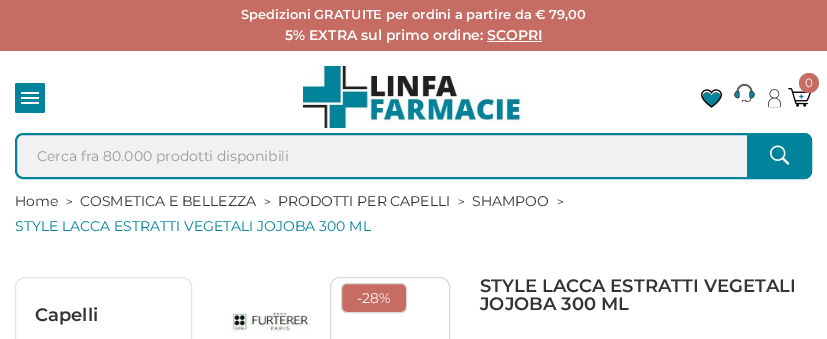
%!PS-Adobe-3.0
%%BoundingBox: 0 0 827 339
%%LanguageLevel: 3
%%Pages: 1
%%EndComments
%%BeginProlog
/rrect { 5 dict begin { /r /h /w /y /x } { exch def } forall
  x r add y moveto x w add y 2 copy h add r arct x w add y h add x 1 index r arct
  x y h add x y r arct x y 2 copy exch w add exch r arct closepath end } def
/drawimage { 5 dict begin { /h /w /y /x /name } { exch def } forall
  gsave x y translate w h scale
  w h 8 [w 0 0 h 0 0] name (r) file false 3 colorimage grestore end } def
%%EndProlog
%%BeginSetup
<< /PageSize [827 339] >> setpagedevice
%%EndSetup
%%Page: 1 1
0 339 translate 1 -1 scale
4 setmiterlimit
1 setgray
0 0 827 339 rectfill
0.776 0.424 0.388 setrgbcolor
0 0 827 51 rectfill
1 setgray
487 41 55 1 rectfill
0 0.514 0.608 setrgbcolor
15 83 30 30 2 rrect fill
(images/1.raw) 21 92 18 12 drawimage
(images/2.raw) 303 66 220 62 drawimage
(images/3.raw) 788 88 23 19 drawimage
0.776 0.424 0.388 setrgbcolor
newpath 809 83 10 0 360 arc closepath fill
(images/4.raw) 701 89 21 19 drawimage
(images/5.raw) 734 84 21 18 drawimage
(images/6.raw) 768 89 13 19 drawimage
0.945 setgray
16 134 795 44 7 rrect gsave fill grestore
0 0.514 0.608 setrgbcolor
2 setlinewidth
stroke
newpath 747 133 moveto 804 133 lineto 808.5 133 812 136.5 812 141 curveto 812 171 lineto 812 175.5 808.5 179 804 179 curveto 747 179 lineto closepath fill
(images/7.raw) 770 145 20 20 drawimage
0.851 setgray
1 setlinewidth
330.5 277.5 119 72 9.5 rrect stroke
0.776 0.424 0.388 setrgbcolor
341.5 283.5 65 29 5.5 rrect gsave fill grestore
0.851 setgray
stroke
(images/8.raw) 230 312 82 25 drawimage
0.898 setgray
15.5 277.5 176 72 9.5 rrect stroke
/Montserrat-SemiBold [13 0 0 -13 0 0] selectfont
1 setgray
241 19 moveto (Spedizioni GRATUITE per ordini a partire da € 79,00) show
/Montserrat-SemiBold [14 0 0 -14 0 0] selectfont
285 40 moveto (5% EXTRA sul primo ordine: SCOPRI) show
/Montserrat-Regular [12 0 0 -12 0 0] selectfont
805 87 moveto (0) show
/Montserrat-Regular [14 0 0 -14 0 0] selectfont
0.6 setgray
37 161 moveto (Cerca fra 80.000 prodotti disponibili) show
0.2 setgray
15 206 moveto (Home) show
/Montserrat-Regular [12 0 0 -12 0 0] selectfont
66 206 moveto (>) show
/Montserrat-Regular [14 0 0 -14 0 0] selectfont
80 206 moveto (COSMETICA E BELLEZZA) show
/Montserrat-Regular [12 0 0 -12 0 0] selectfont
264 206 moveto (>) show
/Montserrat-Regular [14 0 0 -14 0 0] selectfont
278 206 moveto (PRODOTTI PER CAPELLI) show
/Montserrat-Regular [12 0 0 -12 0 0] selectfont
458 206 moveto (>) show
/Montserrat-Regular [14 0 0 -14 0 0] selectfont
472 206 moveto (SHAMPOO) show
/Montserrat-Regular [12 0 0 -12 0 0] selectfont
557 206 moveto (>) show
/Montserrat-Regular [14 0 0 -14 0 0] selectfont
0 0.514 0.608 setrgbcolor
15 231 moveto (STYLE LACCA ESTRATTI VEGETALI JOJOBA 300 ML) show
1 setgray
357 303 moveto (-28%) show
/Montserrat-SemiBold [18 0 0 -18 0 0] selectfont
0.2 setgray
480 292 moveto (STYLE LACCA ESTRATTI VEGETALI) show
480 310 moveto (JOJOBA 300 ML) show
35 321 moveto (Capelli) show
showpage
%%EOF
